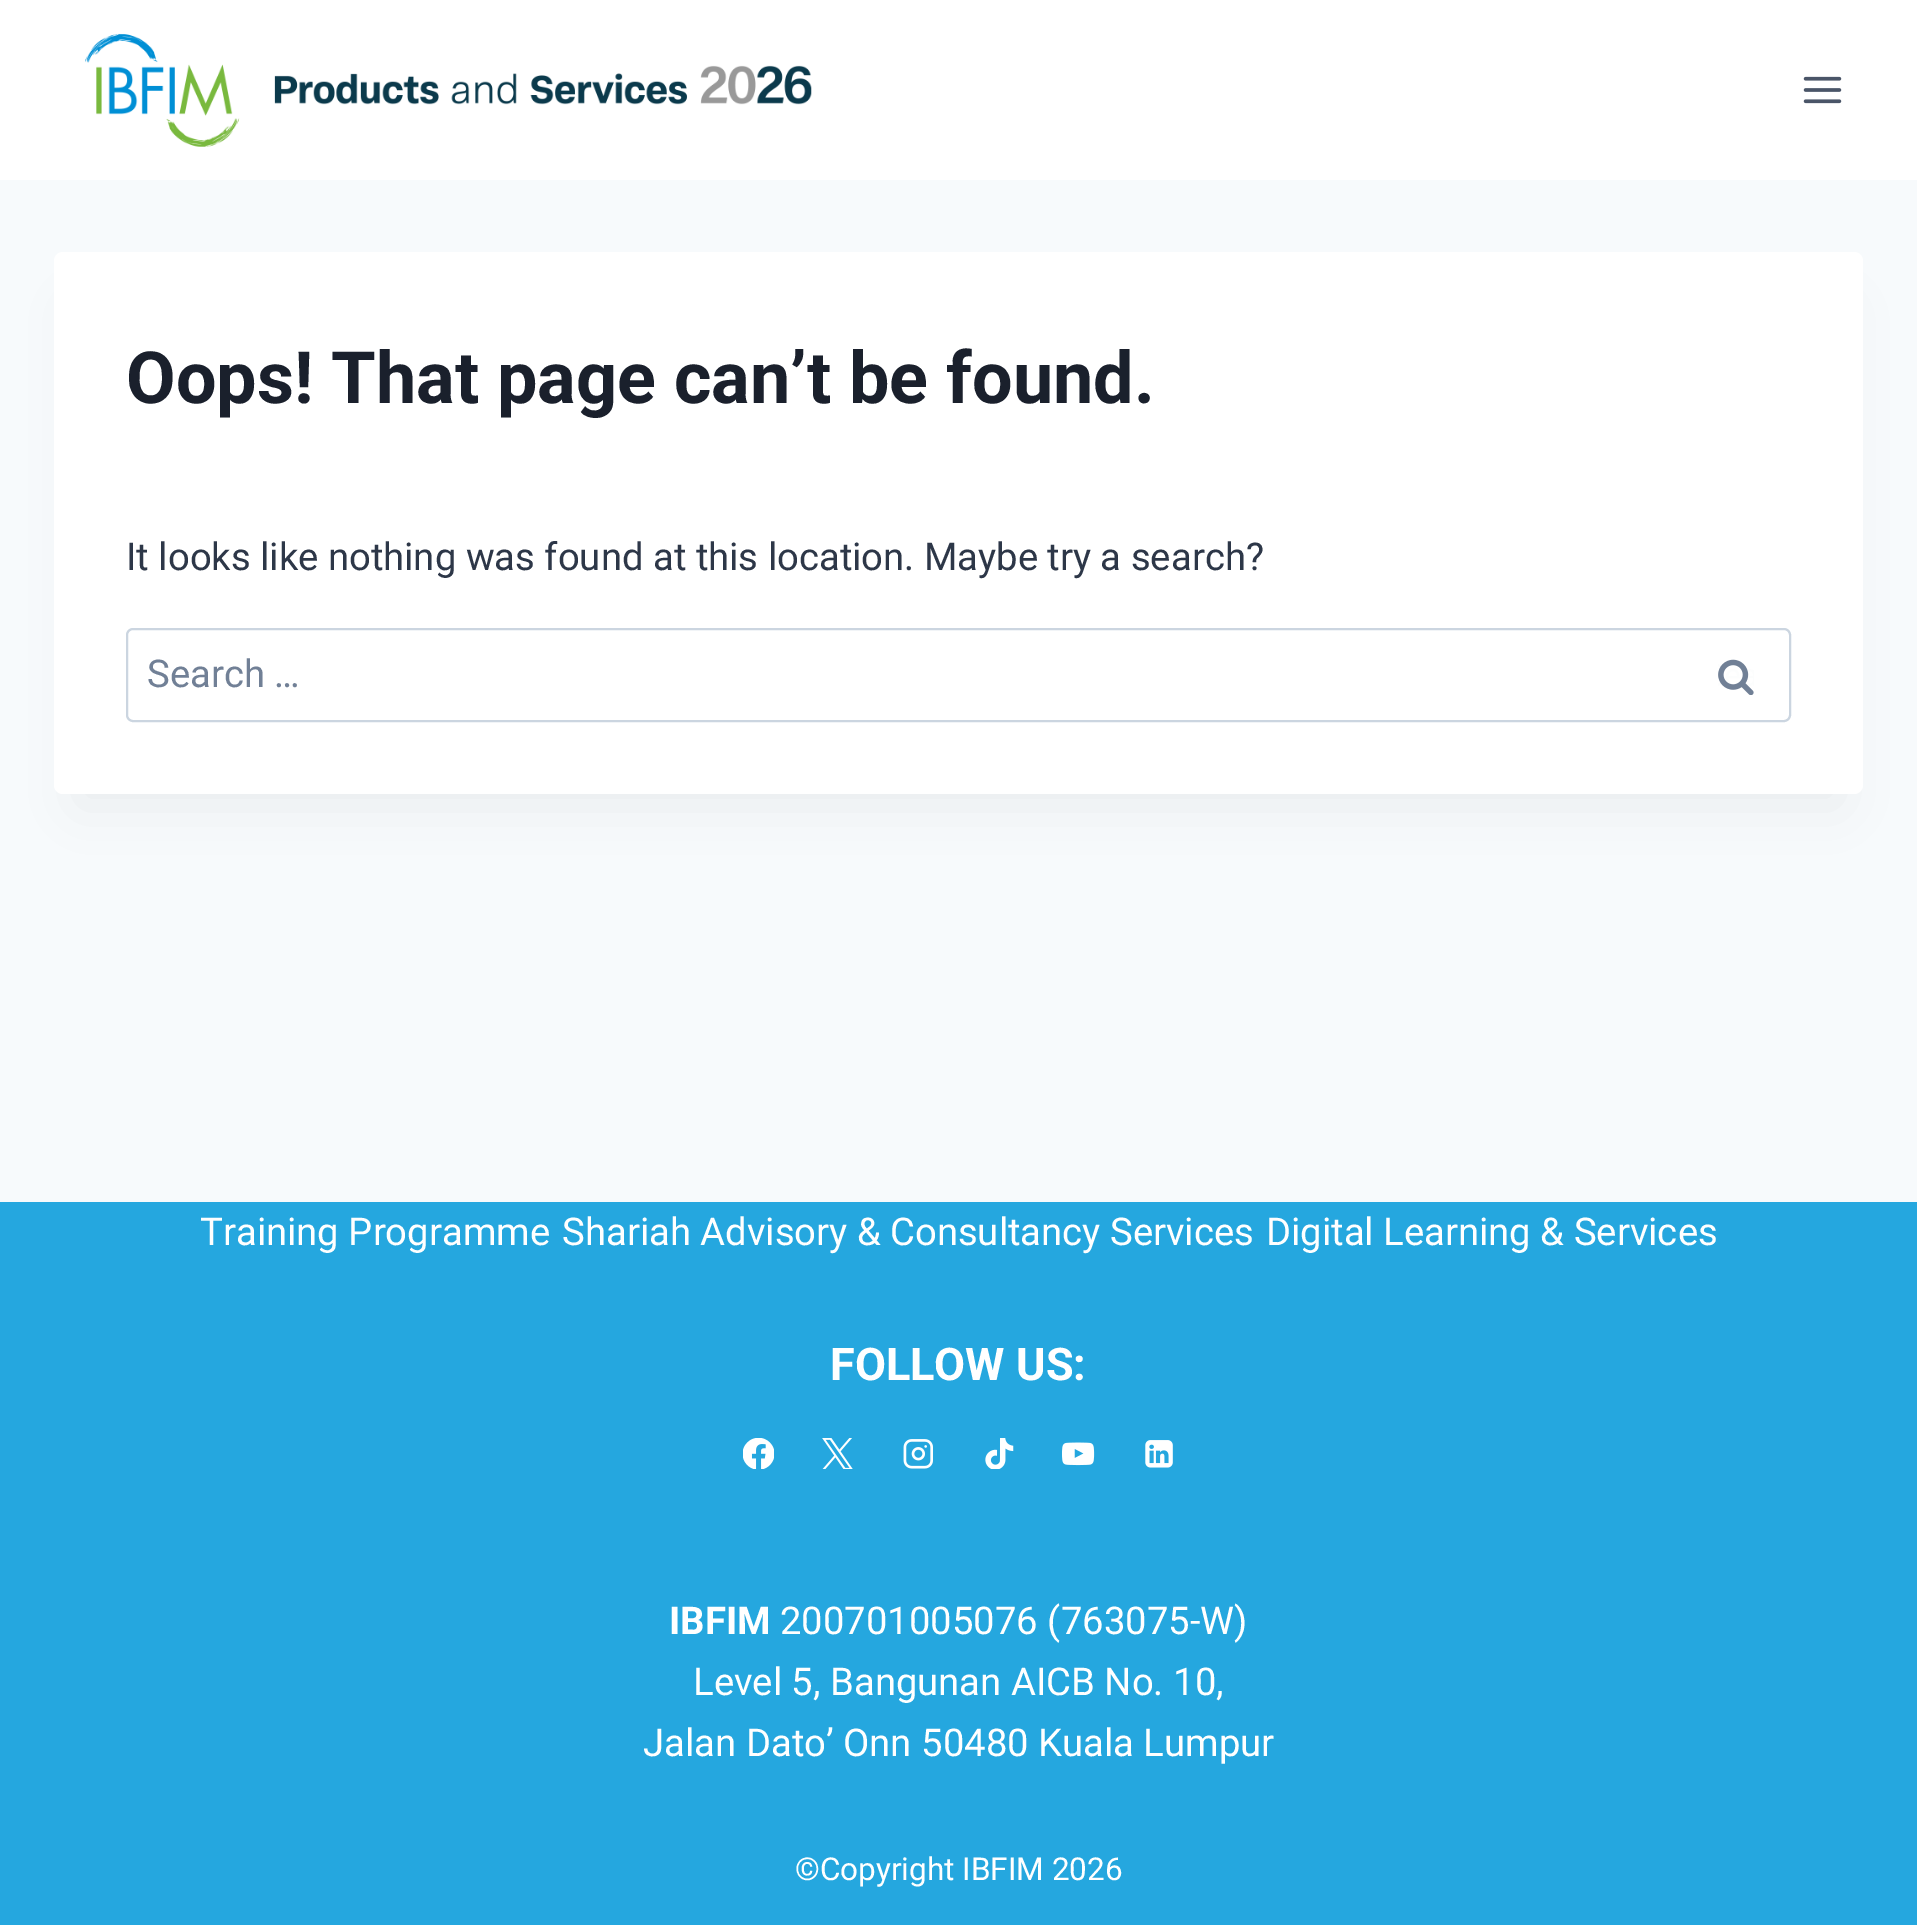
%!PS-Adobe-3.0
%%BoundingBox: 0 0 1917 1925
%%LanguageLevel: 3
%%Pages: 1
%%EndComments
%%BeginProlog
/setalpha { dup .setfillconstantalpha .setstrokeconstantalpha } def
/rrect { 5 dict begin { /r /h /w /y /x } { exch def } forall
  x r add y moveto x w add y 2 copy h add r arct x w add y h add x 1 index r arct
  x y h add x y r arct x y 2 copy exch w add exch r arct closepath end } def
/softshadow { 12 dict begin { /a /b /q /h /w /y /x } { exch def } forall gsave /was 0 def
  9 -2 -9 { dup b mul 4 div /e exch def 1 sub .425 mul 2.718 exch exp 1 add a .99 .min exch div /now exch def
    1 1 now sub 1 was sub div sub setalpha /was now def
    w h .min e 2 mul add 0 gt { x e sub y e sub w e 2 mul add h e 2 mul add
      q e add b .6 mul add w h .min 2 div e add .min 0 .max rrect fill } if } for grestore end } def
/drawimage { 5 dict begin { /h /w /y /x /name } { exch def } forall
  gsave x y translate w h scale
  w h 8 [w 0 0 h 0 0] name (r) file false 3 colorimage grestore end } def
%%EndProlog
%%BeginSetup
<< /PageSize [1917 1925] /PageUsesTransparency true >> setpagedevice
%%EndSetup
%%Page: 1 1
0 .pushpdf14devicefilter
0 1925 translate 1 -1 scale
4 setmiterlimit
0.969 0.98 0.988 setrgbcolor
0 0 1917 1925 rectfill
1 setgray
0 0 1917 180 rectfill
(images/1.raw) 85 33 727 114 drawimage
(images/2.raw) 1803 76 39 28 drawimage
0 setgray
77 308 1764 498 0 28 0.05 softshadow
1 setgray
54 252 1809 542 9 rrect fill
0.796 0.835 0.878 setrgbcolor
2 setlinewidth
127 629 1663 92 6 rrect stroke
(images/3.raw) 1718 659 36 36 drawimage
0.145 0.655 0.875 setrgbcolor
0 1202 1917 723 rectfill
(images/4.raw) 743 1438 31 31 drawimage
(images/5.raw) 822 1438 31 31 drawimage
(images/6.raw) 903 1439 30 30 drawimage
(images/7.raw) 985 1438 29 31 drawimage
(images/8.raw) 1062 1442 33 24 drawimage
(images/9.raw) 1145 1440 28 28 drawimage
/Roboto-Bold [72 0 0 -72 0 0] selectfont
0.102 0.125 0.173 setrgbcolor
126 403 moveto (Oops! That page can’t be found.) show
/Roboto-Regular [38.25 0 0 -38.25 0 0] selectfont
0.176 0.216 0.282 setrgbcolor
126 570 moveto (It looks like nothing was found at this location. Maybe try a search?) show
0.443 0.502 0.588 setrgbcolor
147 687 moveto (Search …) show
1 setgray
200 1245 moveto (Training Programme) show
562 1245 moveto (Shariah Advisory & Consultancy Services) show
1266 1245 moveto (Digital Learning & Services) show
/Roboto-Bold [45 0 0 -45 0 0] selectfont
830 1380 moveto (FOLLOW US:) show
/Roboto-Bold [38.25 0 0 -38.25 0 0] selectfont
669 1634 moveto (IBFIM) show
/Roboto-Regular [38.25 0 0 -38.25 0 0] selectfont
780 1634 moveto (200701005076 \(763075-W\)) show
693 1695 moveto (Level 5, Bangunan AICB No. 10,) show
643 1756 moveto (Jalan Dato’ Onn 50480 Kuala Lumpur) show
/Roboto-Regular [31.5 0 0 -31.5 0 0] selectfont
795 1880 moveto (©Copyright IBFIM 2026) show
.poppdf14devicefilter showpage
%%EOF
